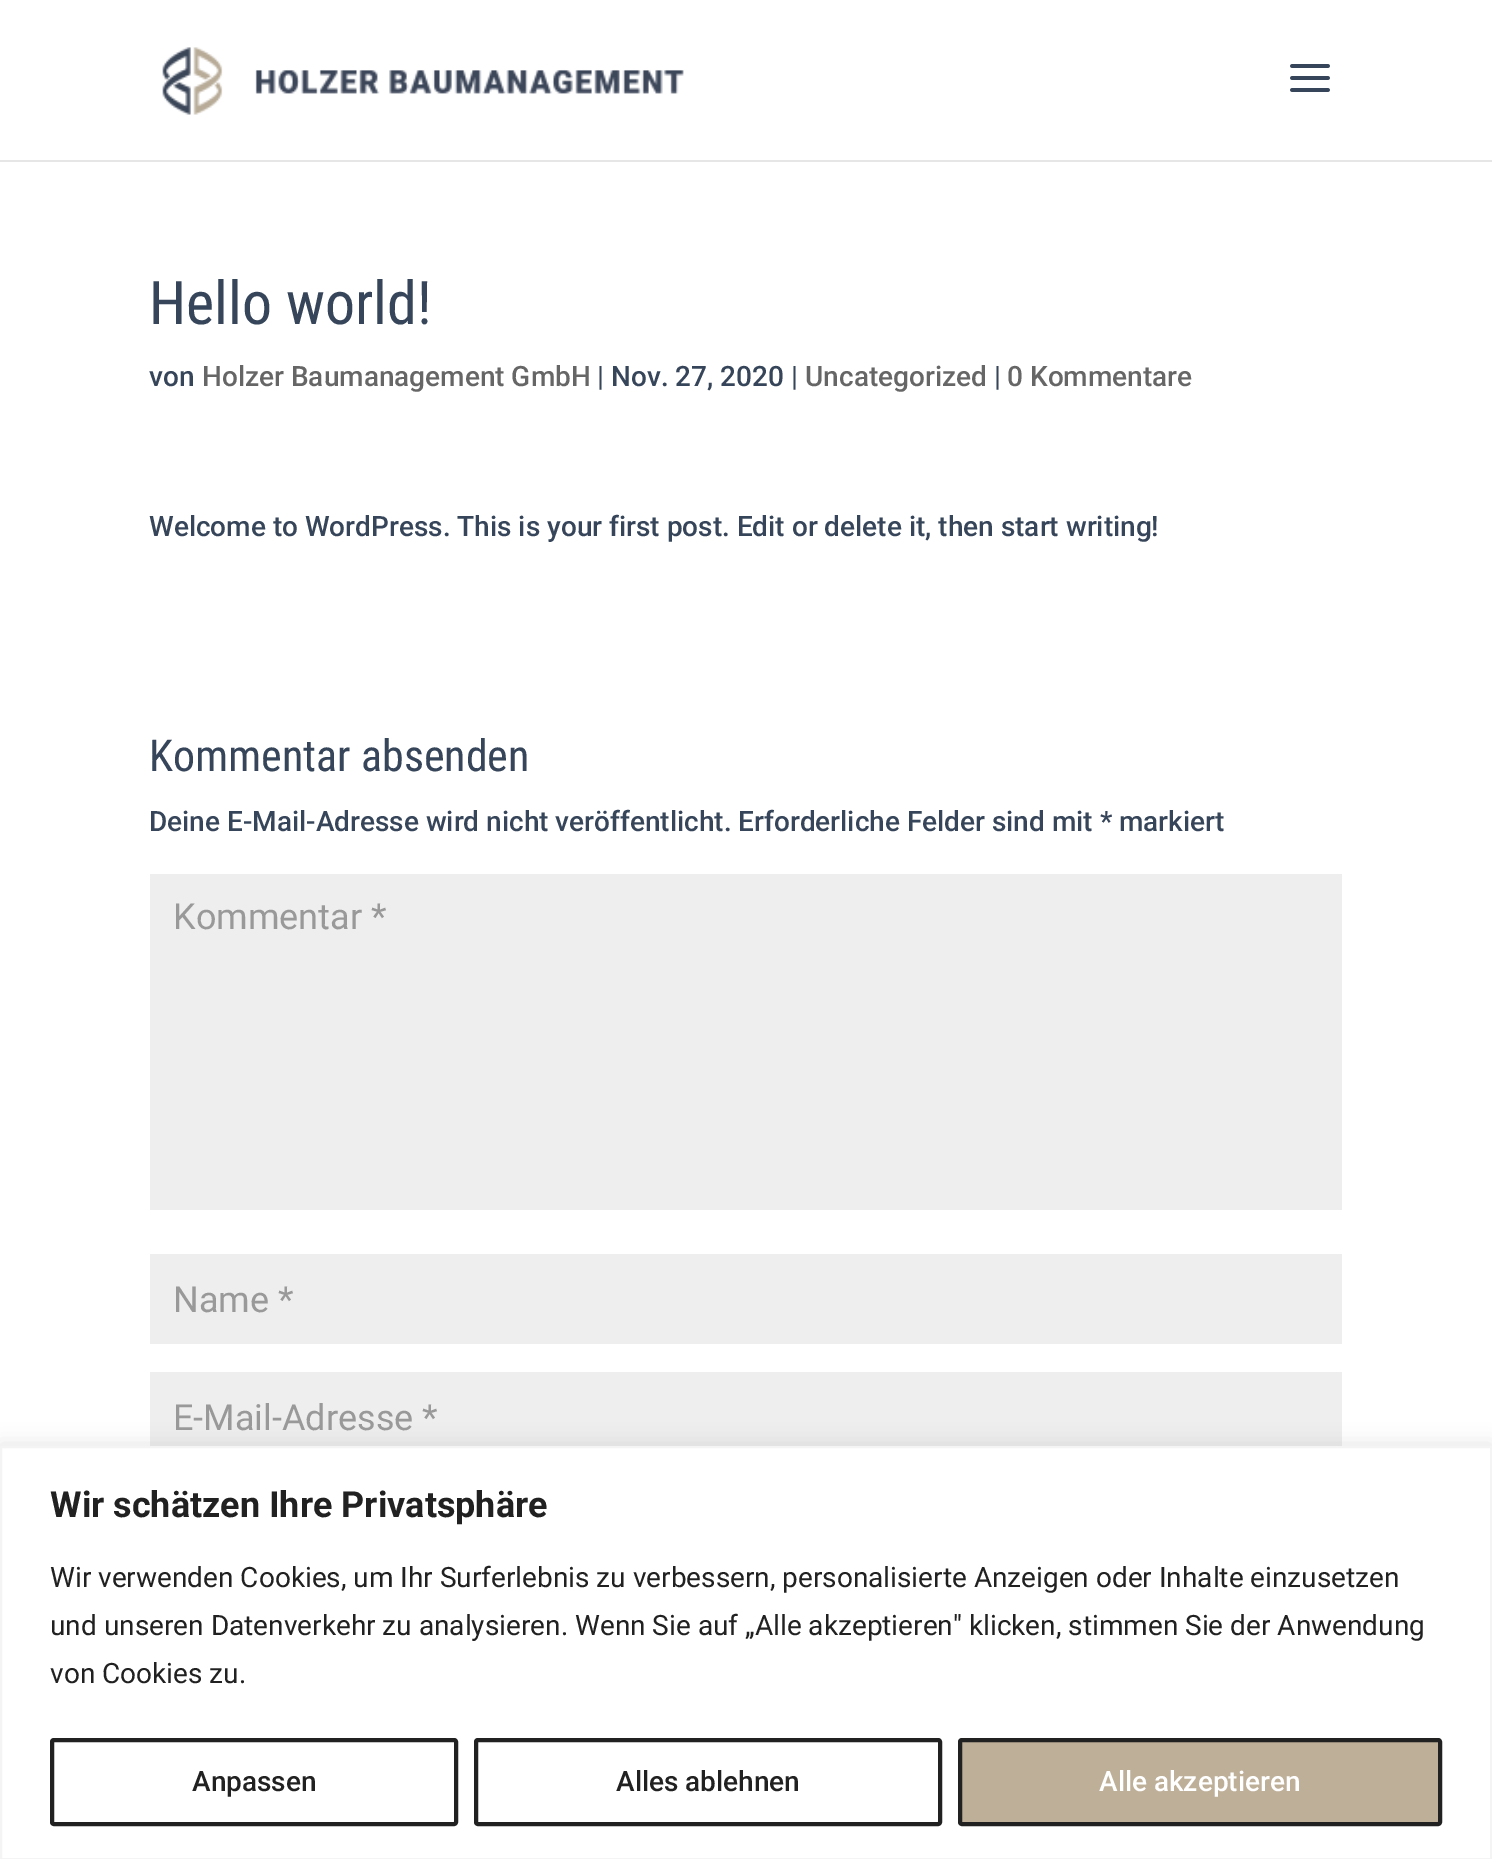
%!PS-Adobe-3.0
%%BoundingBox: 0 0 1492 1859
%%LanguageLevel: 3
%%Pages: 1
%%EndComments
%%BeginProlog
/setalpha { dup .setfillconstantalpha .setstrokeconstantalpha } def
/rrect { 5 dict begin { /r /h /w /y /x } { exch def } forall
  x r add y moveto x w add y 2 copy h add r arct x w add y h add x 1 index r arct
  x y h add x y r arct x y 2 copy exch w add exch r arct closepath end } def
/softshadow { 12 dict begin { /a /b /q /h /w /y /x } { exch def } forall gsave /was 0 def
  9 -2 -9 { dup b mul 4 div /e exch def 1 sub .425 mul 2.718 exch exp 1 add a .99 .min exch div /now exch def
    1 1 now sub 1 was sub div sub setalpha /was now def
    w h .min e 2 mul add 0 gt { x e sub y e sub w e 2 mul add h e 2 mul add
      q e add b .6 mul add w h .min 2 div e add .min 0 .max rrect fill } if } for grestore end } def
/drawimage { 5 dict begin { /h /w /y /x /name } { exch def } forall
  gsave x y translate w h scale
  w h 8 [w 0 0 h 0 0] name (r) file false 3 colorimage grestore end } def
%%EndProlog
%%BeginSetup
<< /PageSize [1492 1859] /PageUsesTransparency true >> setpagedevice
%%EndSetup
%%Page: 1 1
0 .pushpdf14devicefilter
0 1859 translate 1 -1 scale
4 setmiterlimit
1 setgray
0 0 1492 1859 rectfill
0.902 setgray
0 160 1492 2 rectfill
(images/1.raw) 162 47 522 68 drawimage
(images/2.raw) 1290 64 40 28 drawimage
0.933 setgray
150 874 1192 336 rectfill
150 1254 1192 90 rectfill
150 1372 1192 74 rectfill
0.675 0.671 0.671 setrgbcolor
0 1444 1492 414 0 10 0.3 softshadow
1 setgray
newpath 1 1447 moveto 1491 1447 lineto 1491 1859 lineto 1 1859 lineto closepath gsave fill grestore
0.957 setgray
2 setlinewidth
stroke
0.129 setgray
4 setlinewidth
52 1740 404 84 2 rrect stroke
476 1740 464 84 2 rrect stroke
0.745 0.686 0.596 setrgbcolor
960 1740 480 84 2 rrect gsave fill grestore
0.129 setgray
stroke
/RobotoCondensed-Regular [60 0 0 -60 0 0] selectfont
0.212 0.271 0.349 setrgbcolor
149 324 moveto (Hello world!) show
/Roboto-Medium [28 0 0 -28 0 0] selectfont
149 386 moveto (von) show
0.4 setgray
202 386 moveto (Holzer Baumanagement GmbH) show
0.212 0.271 0.349 setrgbcolor
597 386 moveto (| Nov. 27, 2020 |) show
0.4 setgray
805 386 moveto (Uncategorized) show
0.212 0.271 0.349 setrgbcolor
994 386 moveto (|) show
0.4 setgray
1007 386 moveto (0 Kommentare) show
0.212 0.271 0.349 setrgbcolor
149 536 moveto (Welcome to WordPress. This is your first post. Edit or delete it, then start writing!) show
/RobotoCondensed-Regular [44 0 0 -44 0 0] selectfont
149 771 moveto (Kommentar absenden) show
/Roboto-Medium [28 0 0 -28 0 0] selectfont
149 831 moveto (Deine E-Mail-Adresse wird nicht veröffentlicht. Erforderliche Felder sind mit * markiert) show
/Roboto-Regular [36 0 0 -36 0 0] selectfont
0.6 setgray
173 929 moveto (Kommentar *) show
173 1312 moveto (Name *) show
173 1430 moveto (E-Mail-Adresse *) show
/Roboto-Bold [36 0 0 -36 0 0] selectfont
0.129 setgray
50 1517 moveto (Wir schätzen Ihre Privatsphäre) show
/Roboto-Regular [28 0 0 -28 0 0] selectfont
50 1587 moveto (Wir verwenden Cookies, um Ihr Surferlebnis zu verbessern, personalisierte Anzeigen oder Inhalte einzusetzen) show
50 1635 moveto (und unseren Datenverkehr zu analysieren. Wenn Sie auf „Alle akzeptieren" klicken, stimmen Sie der Anwendung) show
50 1683 moveto (von Cookies zu.) show
/Roboto-Medium [28 0 0 -28 0 0] selectfont
192 1791 moveto (Anpassen) show
616 1791 moveto (Alles ablehnen) show
1 setgray
1099 1791 moveto (Alle akzeptieren) show
.poppdf14devicefilter showpage
%%EOF
